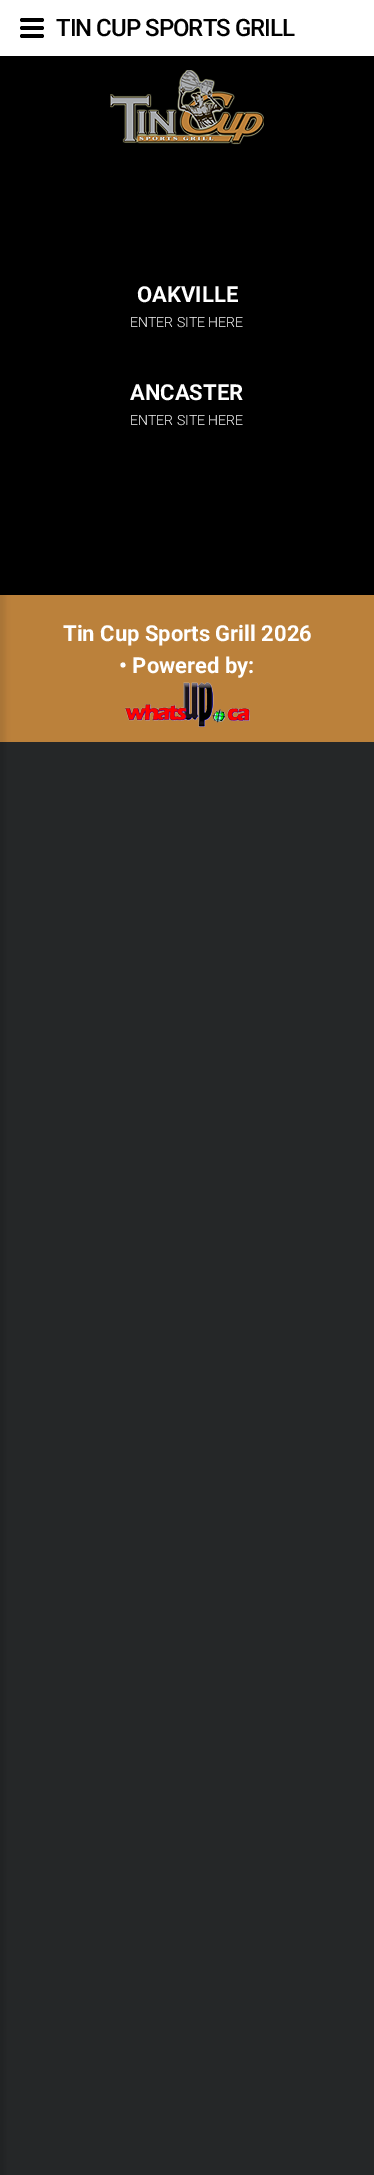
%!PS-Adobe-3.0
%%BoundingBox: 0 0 374 2175
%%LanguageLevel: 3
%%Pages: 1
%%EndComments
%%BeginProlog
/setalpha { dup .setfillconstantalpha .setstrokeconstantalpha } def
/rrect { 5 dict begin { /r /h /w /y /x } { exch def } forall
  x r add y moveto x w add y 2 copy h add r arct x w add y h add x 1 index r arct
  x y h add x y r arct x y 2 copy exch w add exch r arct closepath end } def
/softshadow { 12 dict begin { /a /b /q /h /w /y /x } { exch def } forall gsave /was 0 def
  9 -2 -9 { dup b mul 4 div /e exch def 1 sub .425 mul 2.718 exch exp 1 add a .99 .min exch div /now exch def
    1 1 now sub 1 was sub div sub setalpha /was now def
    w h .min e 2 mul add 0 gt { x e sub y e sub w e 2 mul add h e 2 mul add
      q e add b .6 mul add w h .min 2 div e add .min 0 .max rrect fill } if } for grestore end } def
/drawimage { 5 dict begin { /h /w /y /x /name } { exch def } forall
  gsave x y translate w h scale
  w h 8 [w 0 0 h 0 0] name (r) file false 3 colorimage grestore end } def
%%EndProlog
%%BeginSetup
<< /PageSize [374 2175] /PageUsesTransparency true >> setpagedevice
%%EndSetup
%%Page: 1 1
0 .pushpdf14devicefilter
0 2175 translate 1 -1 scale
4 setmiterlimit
0.145 0.153 0.157 setrgbcolor
0 0 374 2175 rectfill
0 setgray
0 56 374 539 rectfill
0.733 0.506 0.231 setrgbcolor
0 595 374 147 rectfill
0 setgray
-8 -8 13 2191 0 2.5 0.1 softshadow
1 setgray
0 0 374 56 rectfill
0 setgray
newpath 42 30 moveto 22 30 lineto 21 30 20 29 20 28 curveto 20 27 21 26 22 26 curveto 42 26 lineto 43 26 44 27 44 28 curveto 44 29 43 30 42 30 curveto closepath 42 38 moveto 22 38 lineto 21 38 20 37 20 36 curveto 20 35 21 34 22 34 curveto 42 34 lineto 43 34 44 35 44 36 curveto 44 37 43 38 42 38 curveto closepath 42 22 moveto 22 22 lineto 21 22 20 21 20 20 curveto 20 19 21 18 22 18 curveto 42 18 lineto 43 18 44 19 44 20 curveto 44 21 43 22 42 22 curveto closepath fill
(images/1.raw) 110 70 154 75 drawimage
(images/2.raw) 125 682 125 45 drawimage
/Roboto-Medium [24 0 0 -24 0 0] selectfont
56 36 moveto -1 0 (TIN CUP SPORTS GRILL) ashow
/Roboto-Bold [22 0 0 -22 0 0] selectfont
1 setgray
137 302 moveto (OAKVILLE) show
/Roboto-Light [14 0 0 -14 0 0] selectfont
130 327 moveto (ENTER SITE HERE) show
/Roboto-Bold [22 0 0 -22 0 0] selectfont
130 400 moveto (ANCASTER) show
/Roboto-Light [14 0 0 -14 0 0] selectfont
130 425 moveto (ENTER SITE HERE) show
/Roboto-Bold [22 0 0 -22 0 0] selectfont
63 641 moveto (Tin Cup Sports Grill 2026) show
119 673 moveto (• Powered by:) show
.poppdf14devicefilter showpage
%%EOF
